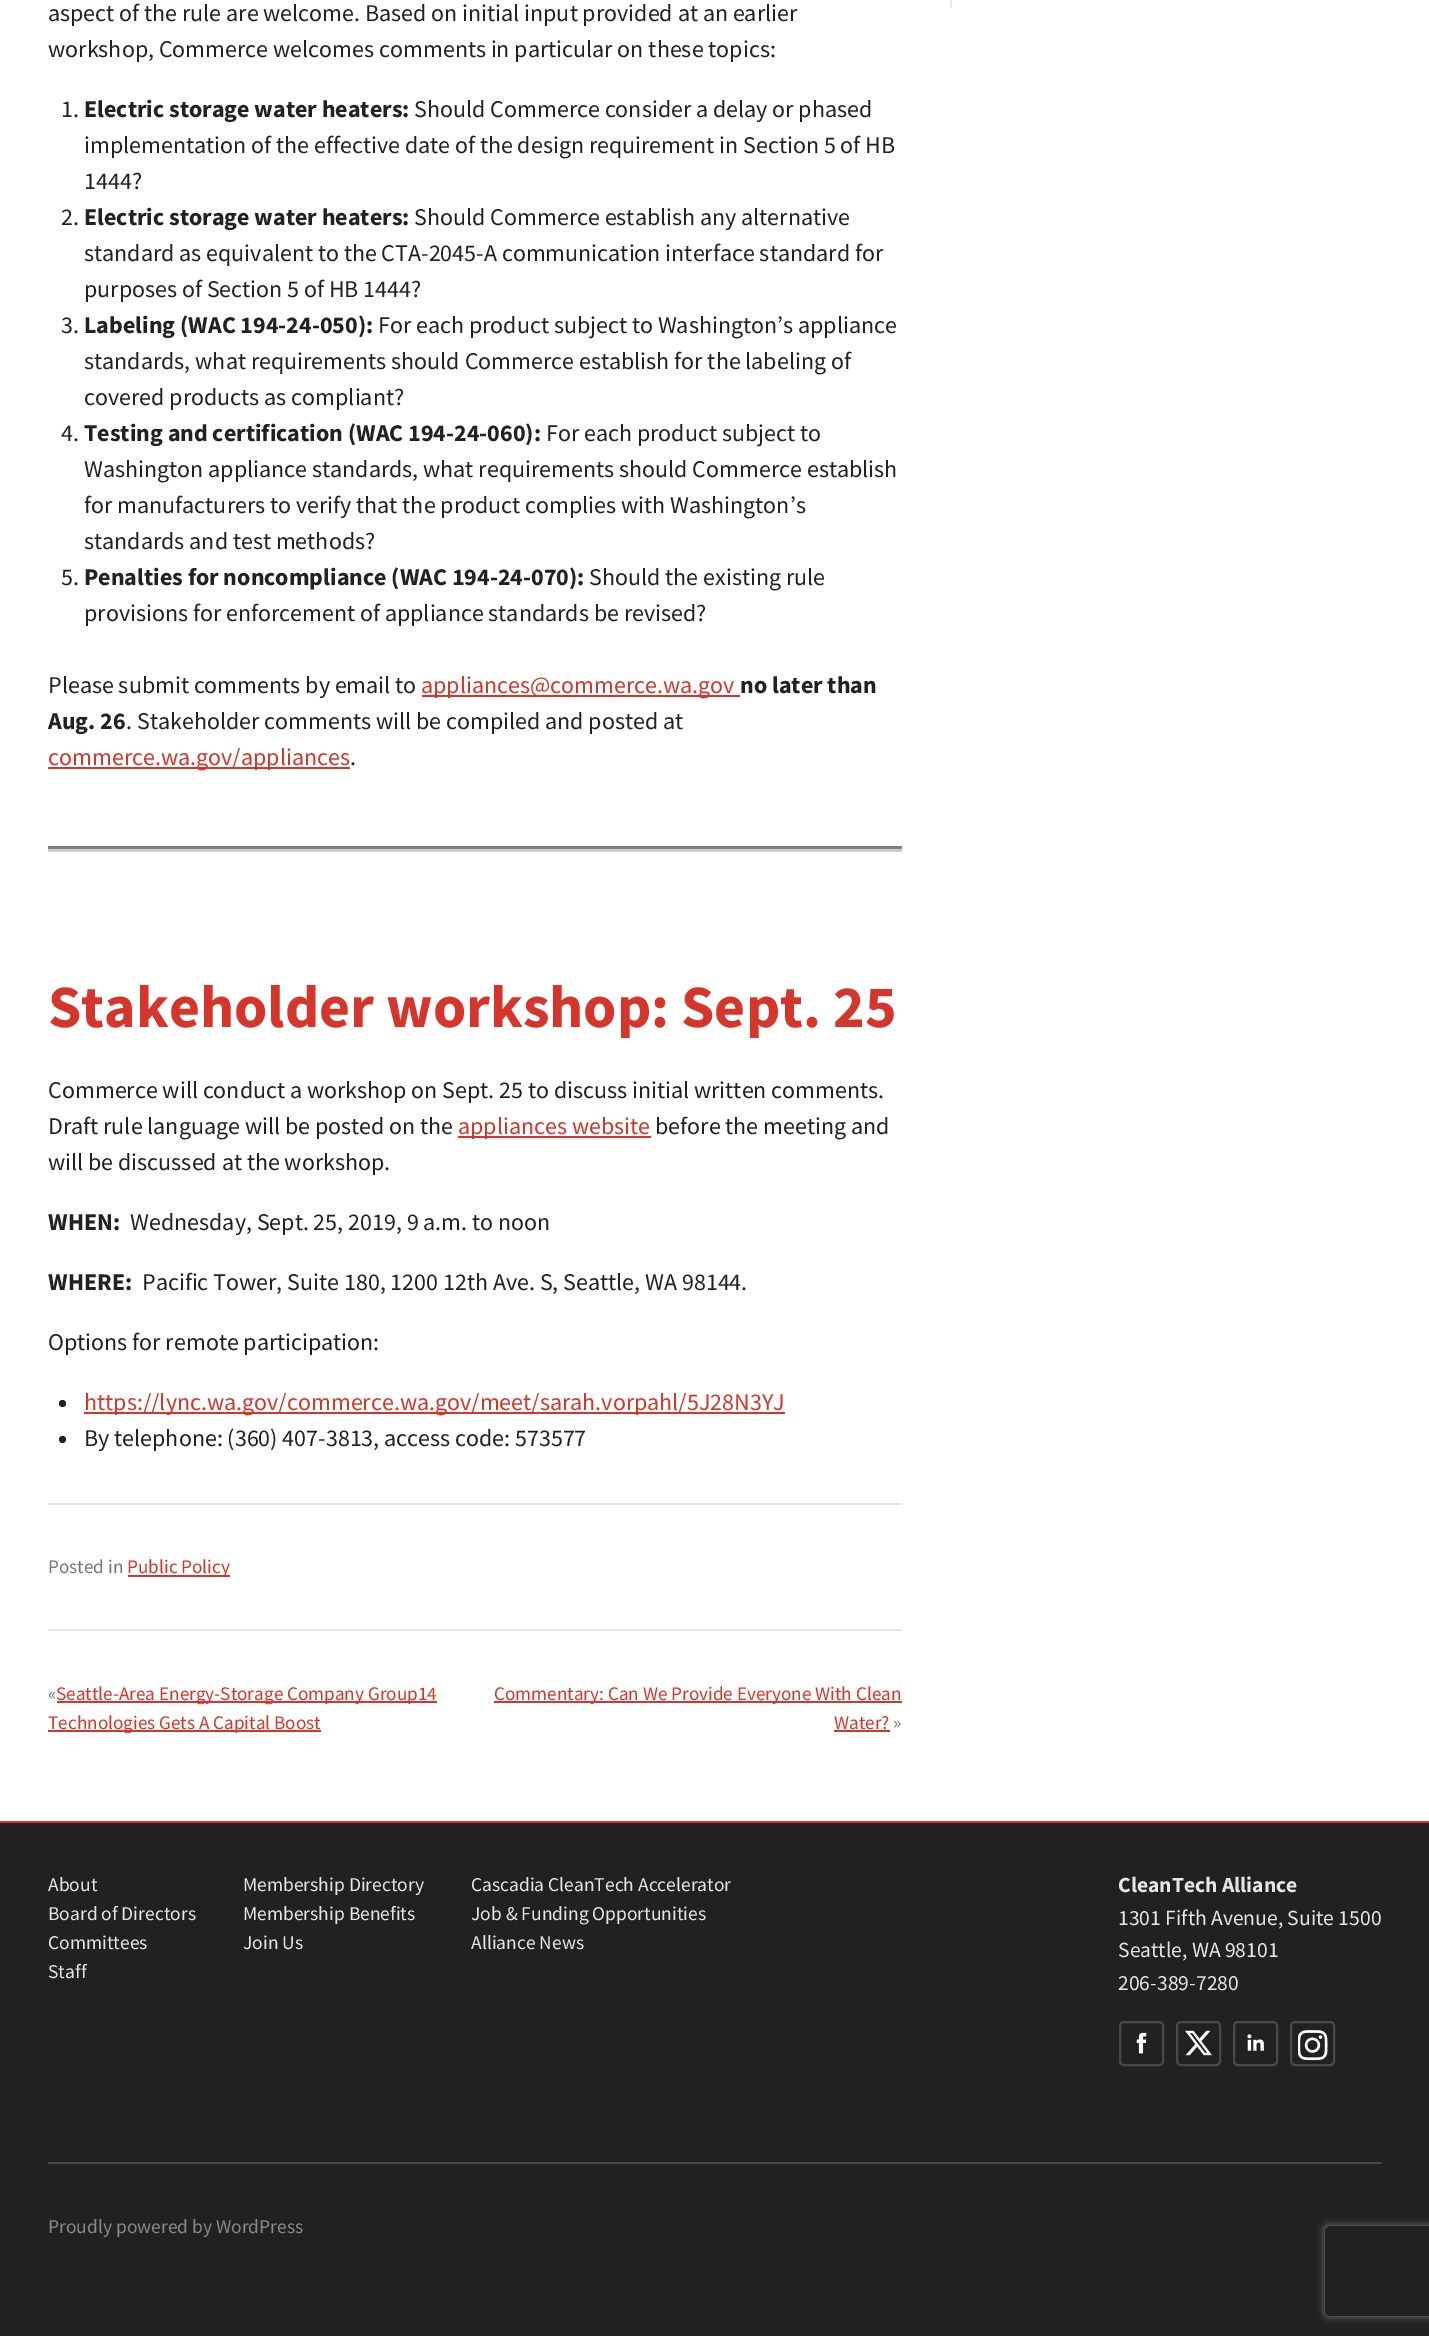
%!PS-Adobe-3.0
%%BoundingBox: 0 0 1429 2336
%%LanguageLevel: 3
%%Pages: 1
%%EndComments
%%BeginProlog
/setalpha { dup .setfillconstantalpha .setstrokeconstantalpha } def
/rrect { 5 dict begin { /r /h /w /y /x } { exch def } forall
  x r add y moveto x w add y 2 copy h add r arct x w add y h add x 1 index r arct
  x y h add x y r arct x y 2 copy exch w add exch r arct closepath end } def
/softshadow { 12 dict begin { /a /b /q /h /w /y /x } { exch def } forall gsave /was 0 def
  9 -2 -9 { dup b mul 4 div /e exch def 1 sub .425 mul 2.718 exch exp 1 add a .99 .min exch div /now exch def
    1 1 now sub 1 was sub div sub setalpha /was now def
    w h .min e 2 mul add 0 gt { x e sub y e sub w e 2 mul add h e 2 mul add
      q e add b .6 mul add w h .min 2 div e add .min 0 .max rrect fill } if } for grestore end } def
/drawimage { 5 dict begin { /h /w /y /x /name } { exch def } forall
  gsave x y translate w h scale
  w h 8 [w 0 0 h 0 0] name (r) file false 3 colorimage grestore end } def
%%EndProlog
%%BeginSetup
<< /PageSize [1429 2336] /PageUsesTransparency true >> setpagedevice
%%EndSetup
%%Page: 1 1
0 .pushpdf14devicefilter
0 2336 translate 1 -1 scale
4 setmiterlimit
1 setgray
0 0 1429 2336 rectfill
0.835 0.208 0.165 setrgbcolor
422 695 318 2 rectfill
48 767 302 2 rectfill
0.8 setgray
48 849 854 3 rectfill
0.502 setgray
48 846 854 3 rectfill
0.835 0.208 0.165 setrgbcolor
458 1136 193 2 rectfill
0.129 setgray
newpath 62.5 1403.5 3.5 0 360 arc closepath fill
0.835 0.208 0.165 setrgbcolor
84 1412 701 2 rectfill
0.129 setgray
newpath 62.5 1439.5 3.5 0 360 arc closepath fill
0.902 setgray
48 1503 854 2 rectfill
0.835 0.208 0.165 setrgbcolor
128 1575 102 2 rectfill
0.902 setgray
48 1629 854 2 rectfill
0.835 0.208 0.165 setrgbcolor
57 1701 380 2 rectfill
48 1730 273 2 rectfill
494 1701 408 2 rectfill
834 1730 56 2 rectfill
0.902 setgray
950 0 2 8 rectfill
0.129 setgray
0 1823 1429 513 rectfill
0.835 0.208 0.165 setrgbcolor
0 1821 1429 2 rectfill
0.286 setgray
2 setlinewidth
1120 2022 43 43 4 rrect stroke
(images/1.raw) 1136 2032 11 22 drawimage
1177 2022 43 43 4 rrect stroke
(images/2.raw) 1185 2030 27 26 drawimage
1234 2022 43 43 4 rrect stroke
(images/3.raw) 1247 2034 17 17 drawimage
1291 2022 43 43 4 rrect stroke
(images/4.raw) 1298 2030 30 31 drawimage
48 2162 1334 2 rectfill
gsave
newpath 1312 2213 moveto 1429 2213 lineto 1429 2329 lineto 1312 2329 lineto closepath 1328 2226 moveto 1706 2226 lineto 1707.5 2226 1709 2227.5 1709 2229 curveto 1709 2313 lineto 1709 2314.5 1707.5 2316 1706 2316 curveto 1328 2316 lineto 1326.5 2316 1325 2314.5 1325 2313 curveto 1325 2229 lineto 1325 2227.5 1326.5 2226 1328 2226 curveto closepath eoclip newpath
0.502 setgray
1325 2226 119 90 3 4 1 softshadow
grestore
/SourceSansPro-Regular [24 0 0 -24 0 0] selectfont
0.129 setgray
48 21 moveto (aspect of the rule are welcome. Based on initial input provided at an earlier) show
48 57 moveto (workshop, Commerce welcomes comments in particular on these topics:) show
61 117 moveto (1.) show
/SourceSansPro-Bold [24 0 0 -24 0 0] selectfont
84 117 moveto (Electric storage water heaters:) show
/SourceSansPro-Regular [24 0 0 -24 0 0] selectfont
414 117 moveto (Should Commerce consider a delay or phased) show
84 153 moveto (implementation of the effective date of the design requirement in Section 5 of HB) show
84 189 moveto (1444?) show
61 225 moveto (2.) show
/SourceSansPro-Bold [24 0 0 -24 0 0] selectfont
84 225 moveto (Electric storage water heaters:) show
/SourceSansPro-Regular [24 0 0 -24 0 0] selectfont
414 225 moveto (Should Commerce establish any alternative) show
84 261 moveto (standard as equivalent to the CTA-2045-A communication interface standard for) show
84 297 moveto (purposes of Section 5 of HB 1444?) show
61 333 moveto (3.) show
/SourceSansPro-Bold [24 0 0 -24 0 0] selectfont
84 333 moveto (Labeling \(WAC 194-24-050\):) show
/SourceSansPro-Regular [24 0 0 -24 0 0] selectfont
378 333 moveto (For each product subject to Washington’s appliance) show
84 369 moveto (standards, what requirements should Commerce establish for the labeling of) show
84 405 moveto (covered products as compliant?) show
61 441 moveto (4.) show
/SourceSansPro-Bold [24 0 0 -24 0 0] selectfont
84 441 moveto (Testing and certification \(WAC 194-24-060\):) show
/SourceSansPro-Regular [24 0 0 -24 0 0] selectfont
546 441 moveto (For each product subject to) show
84 477 moveto (Washington appliance standards, what requirements should Commerce establish) show
84 513 moveto (for manufacturers to verify that the product complies with Washington’s) show
84 549 moveto (standards and test methods?) show
61 585 moveto (5.) show
/SourceSansPro-Bold [24 0 0 -24 0 0] selectfont
84 585 moveto (Penalties for noncompliance \(WAC 194-24-070\):) show
/SourceSansPro-Regular [24 0 0 -24 0 0] selectfont
589 585 moveto (Should the existing rule) show
84 621 moveto (provisions for enforcement of appliance standards be revised?) show
48 693 moveto (Please submit comments by email to) show
0.835 0.208 0.165 setrgbcolor
421 693 moveto (appliances@commerce.wa.gov) show
/SourceSansPro-Bold [24 0 0 -24 0 0] selectfont
0.129 setgray
740 693 moveto (no later than) show
48 729 moveto (Aug. 26) show
/SourceSansPro-Regular [24 0 0 -24 0 0] selectfont
126 729 moveto (. Stakeholder comments will be compiled and posted at) show
0.835 0.208 0.165 setrgbcolor
48 765 moveto (commerce.wa.gov/appliances) show
0.129 setgray
350 765 moveto (.) show
/SourceSansPro-Bold [60 0 0 -60 0 0] selectfont
0.835 0.208 0.165 setrgbcolor
48 1027 moveto (Stakeholder workshop: Sept. 25) show
/SourceSansPro-Regular [24 0 0 -24 0 0] selectfont
0.129 setgray
48 1098 moveto (Commerce will conduct a workshop on Sept. 25 to discuss initial written comments.) show
48 1134 moveto (Draft rule language will be posted on the) show
0.835 0.208 0.165 setrgbcolor
458 1134 moveto (appliances website) show
0.129 setgray
655 1134 moveto (before the meeting and) show
48 1170 moveto (will be discussed at the workshop.) show
/SourceSansPro-Bold [24 0 0 -24 0 0] selectfont
48 1230 moveto (WHEN:) show
/SourceSansPro-Regular [24 0 0 -24 0 0] selectfont
130 1230 moveto (Wednesday, Sept. 25, 2019, 9 a.m. to noon) show
/SourceSansPro-Bold [24 0 0 -24 0 0] selectfont
48 1290 moveto (WHERE:) show
/SourceSansPro-Regular [24 0 0 -24 0 0] selectfont
142 1290 moveto (Pacific Tower, Suite 180, 1200 12th Ave. S, Seattle, WA 98144.) show
48 1350 moveto (Options for remote participation:) show
0.835 0.208 0.165 setrgbcolor
84 1410 moveto (https://lync.wa.gov/commerce.wa.gov/meet/sarah.vorpahl/5J28N3YJ) show
0.129 setgray
84 1446 moveto (By telephone: \(360\) 407-3813, access code: 573577) show
/SourceSansPro-Regular [19.2 0 0 -19.2 0 0] selectfont
0.463 setgray
48 1573 moveto (Posted in) show
0.835 0.208 0.165 setrgbcolor
127 1573 moveto (Public Policy) show
0.463 setgray
48 1700 moveto («) show
0.835 0.208 0.165 setrgbcolor
56 1700 moveto (Seattle-Area Energy-Storage Company Group14) show
48 1729 moveto (Technologies Gets A Capital Boost) show
494 1700 moveto (Commentary: Can We Provide Everyone With Clean) show
834 1729 moveto (Water?) show
0.463 setgray
893 1729 moveto (») show
/SourceSansPro-Regular [19.5 0 0 -19.5 0 0] selectfont
0.898 setgray
48 1891 moveto (About) show
48 1920 moveto (Board of Directors) show
48 1949 moveto (Committees) show
48 1978 moveto (Staff) show
243 1891 moveto (Membership Directory) show
243 1920 moveto (Membership Benefits) show
243 1949 moveto (Join Us) show
471 1891 moveto (Cascadia CleanTech Accelerator) show
471 1920 moveto (Job & Funding Opportunities) show
471 1949 moveto (Alliance News) show
/SourceSansPro-Bold [21.6 0 0 -21.6 0 0] selectfont
1118 1892 moveto (CleanTech Alliance) show
/SourceSansPro-Regular [21.6 0 0 -21.6 0 0] selectfont
1118 1925 moveto (1301 Fifth Avenue, Suite 1500) show
1118 1957 moveto (Seattle, WA 98101) show
1118 1990 moveto (206-389-7280) show
/SourceSansPro-Regular [19.5 0 0 -19.5 0 0] selectfont
0.533 setgray
48 2233 moveto (Proudly powered by WordPress) show
.poppdf14devicefilter showpage
%%EOF
